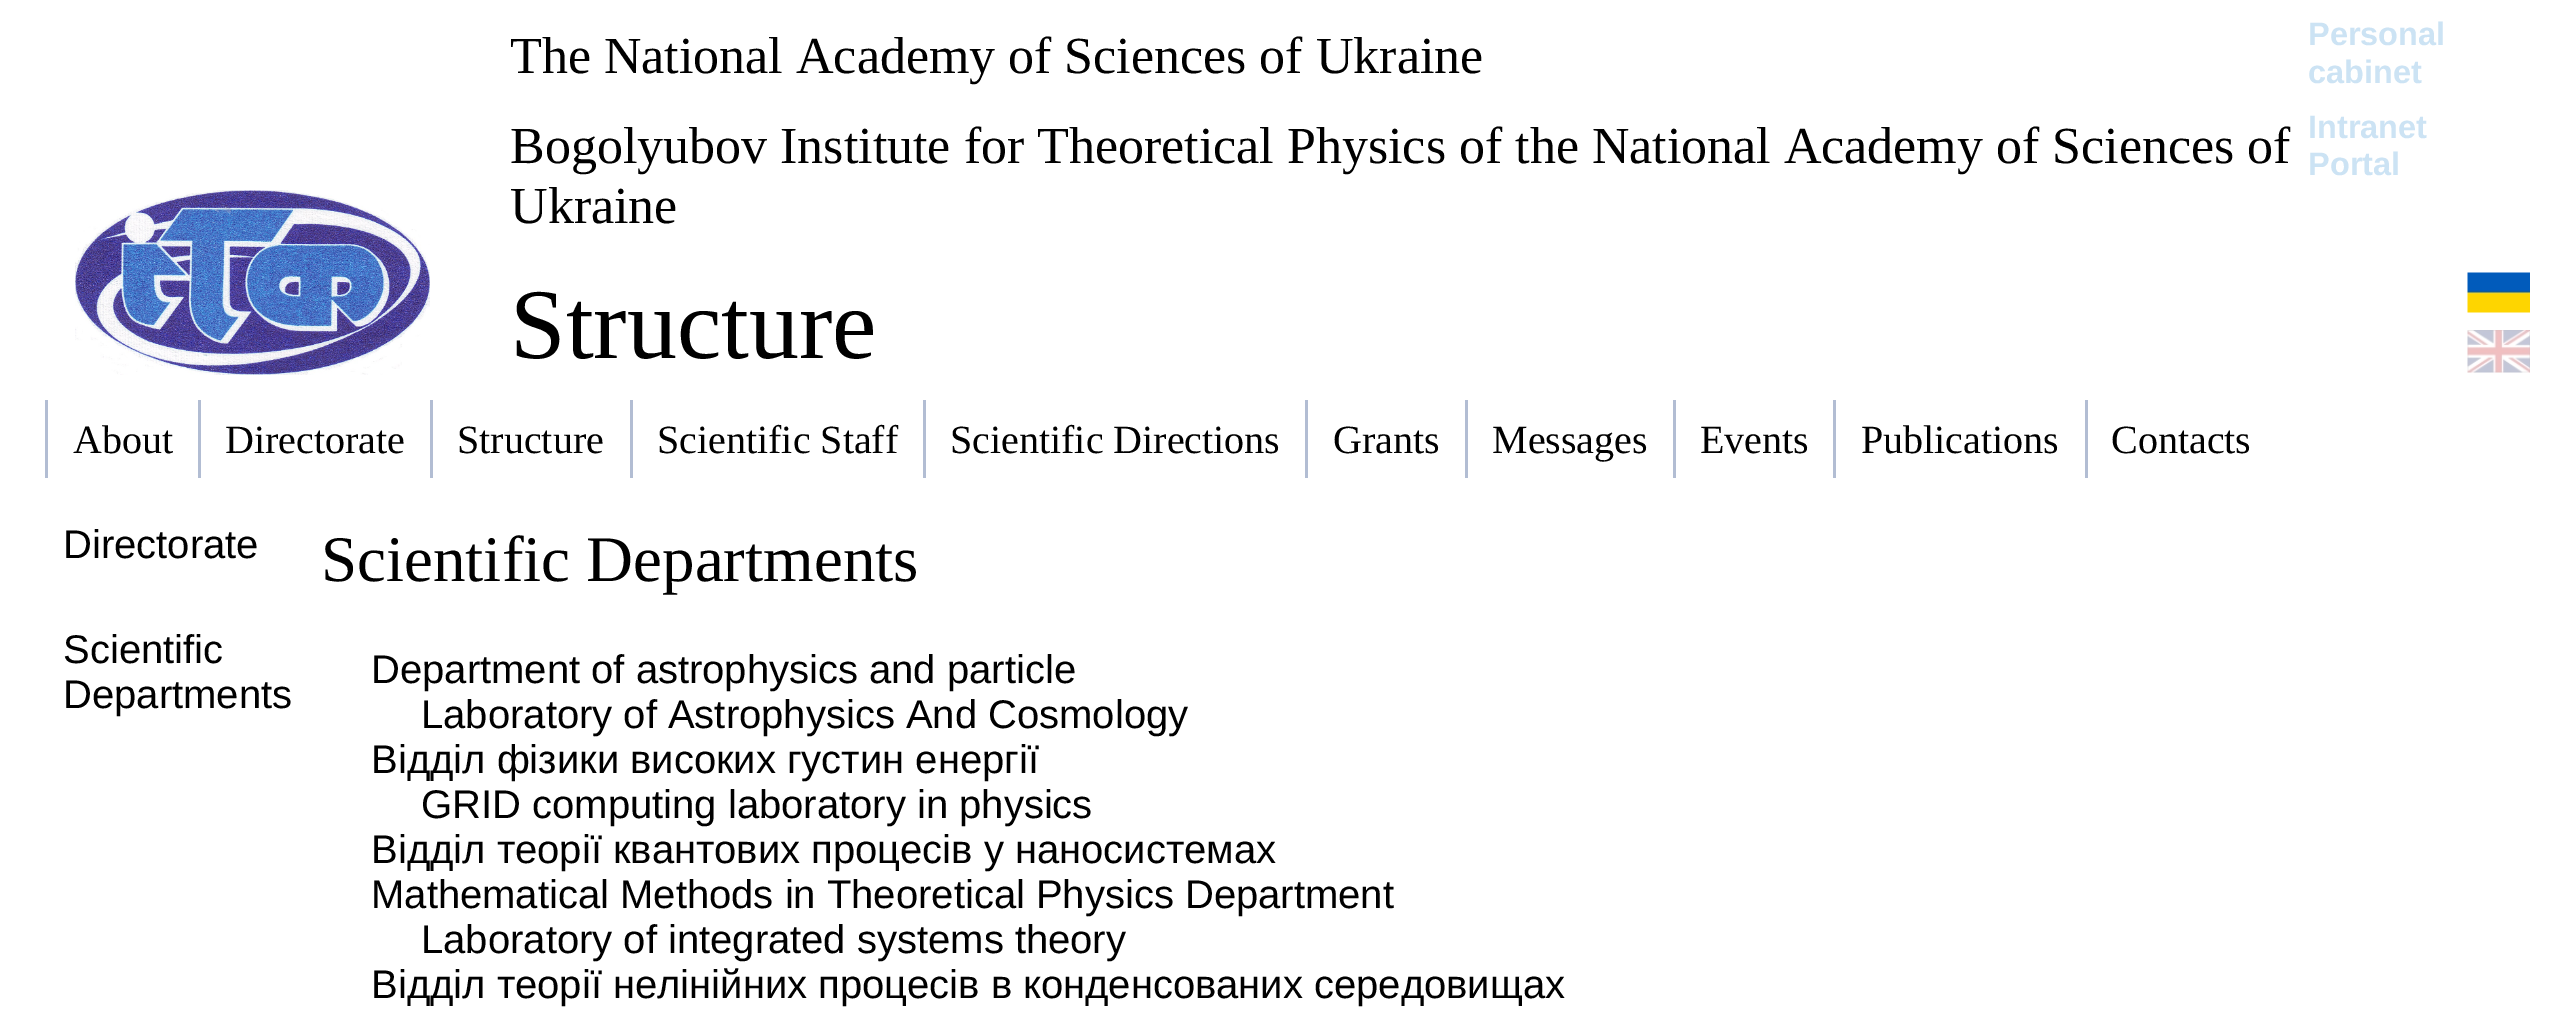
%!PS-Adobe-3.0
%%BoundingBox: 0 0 2552 1023
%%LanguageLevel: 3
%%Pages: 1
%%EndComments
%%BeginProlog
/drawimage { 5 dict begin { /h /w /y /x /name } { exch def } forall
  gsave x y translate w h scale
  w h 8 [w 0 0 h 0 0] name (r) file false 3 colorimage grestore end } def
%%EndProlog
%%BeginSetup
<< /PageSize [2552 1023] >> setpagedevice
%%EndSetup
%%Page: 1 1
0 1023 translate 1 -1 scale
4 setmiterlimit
1 setgray
0 0 2552 1023 rectfill
(images/1.raw) 75 190 355 185 drawimage
(images/2.raw) 2467 272 63 41 drawimage
(images/3.raw) 2467 330 63 43 drawimage
0.698 0.741 0.827 setrgbcolor
45 400 3 78 rectfill
198 400 3 78 rectfill
430 400 3 78 rectfill
630 400 3 78 rectfill
923 400 3 78 rectfill
1305 400 3 78 rectfill
1465 400 3 78 rectfill
1673 400 3 78 rectfill
1833 400 3 78 rectfill
2085 400 3 78 rectfill
/LiberationSerif-Regular [52 0 0 -52 0 0] selectfont
0 setgray
510 73 moveto (The National Academy of Sciences of Ukraine) show
/LiberationSans-Bold [32.5 0 0 -32.5 0 0] selectfont
0.8 0.89 0.957 setrgbcolor
2308 45 moveto (Personal) show
2308 83 moveto (cabinet) show
2308 138 moveto (Intranet) show
2308 175 moveto (Portal) show
/LiberationSerif-Regular [52 0 0 -52 0 0] selectfont
0 setgray
510 163 moveto (Bogolyubov Institute for Theoretical Physics of the National Academy of Sciences of) show
510 223 moveto (Ukraine) show
/LiberationSerif-Regular [100 0 0 -100 0 0] selectfont
510 358 moveto (Structure) show
/LiberationSerif-Regular [40 0 0 -40 0 0] selectfont
73 453 moveto (About) show
225 453 moveto (Directorate) show
457 453 moveto (Structure) show
657 453 moveto (Scientific Staff) show
950 453 moveto (Scientific Directions) show
1333 453 moveto (Grants) show
1492 453 moveto (Messages) show
1700 453 moveto (Events) show
1861 453 moveto (Publications) show
2111 453 moveto (Contacts) show
/LiberationSans-Regular [40 0 0 -40 0 0] selectfont
63 558 moveto (Directorate) show
63 663 moveto (Scientific) show
63 708 moveto (Departments) show
/LiberationSerif-Regular [65 0 0 -65 0 0] selectfont
321 581 moveto (Scientific Departments) show
/LiberationSans-Regular [40 0 0 -40 0 0] selectfont
371 683 moveto (Department of astrophysics and particle) show
421 728 moveto (Laboratory of Astrophysics And Cosmology) show
371 773 moveto (Відділ фізики високих густин енергії) show
421 818 moveto (GRID computing laboratory in physics) show
371 863 moveto (Відділ теорії квантових процесів у наносистемах) show
371 908 moveto (Mathematical Methods in Theoretical Physics Department) show
421 953 moveto (Laboratory of integrated systems theory) show
371 998 moveto (Відділ теорії нелінійних процесів в конденсованих середовищах) show
showpage
%%EOF
